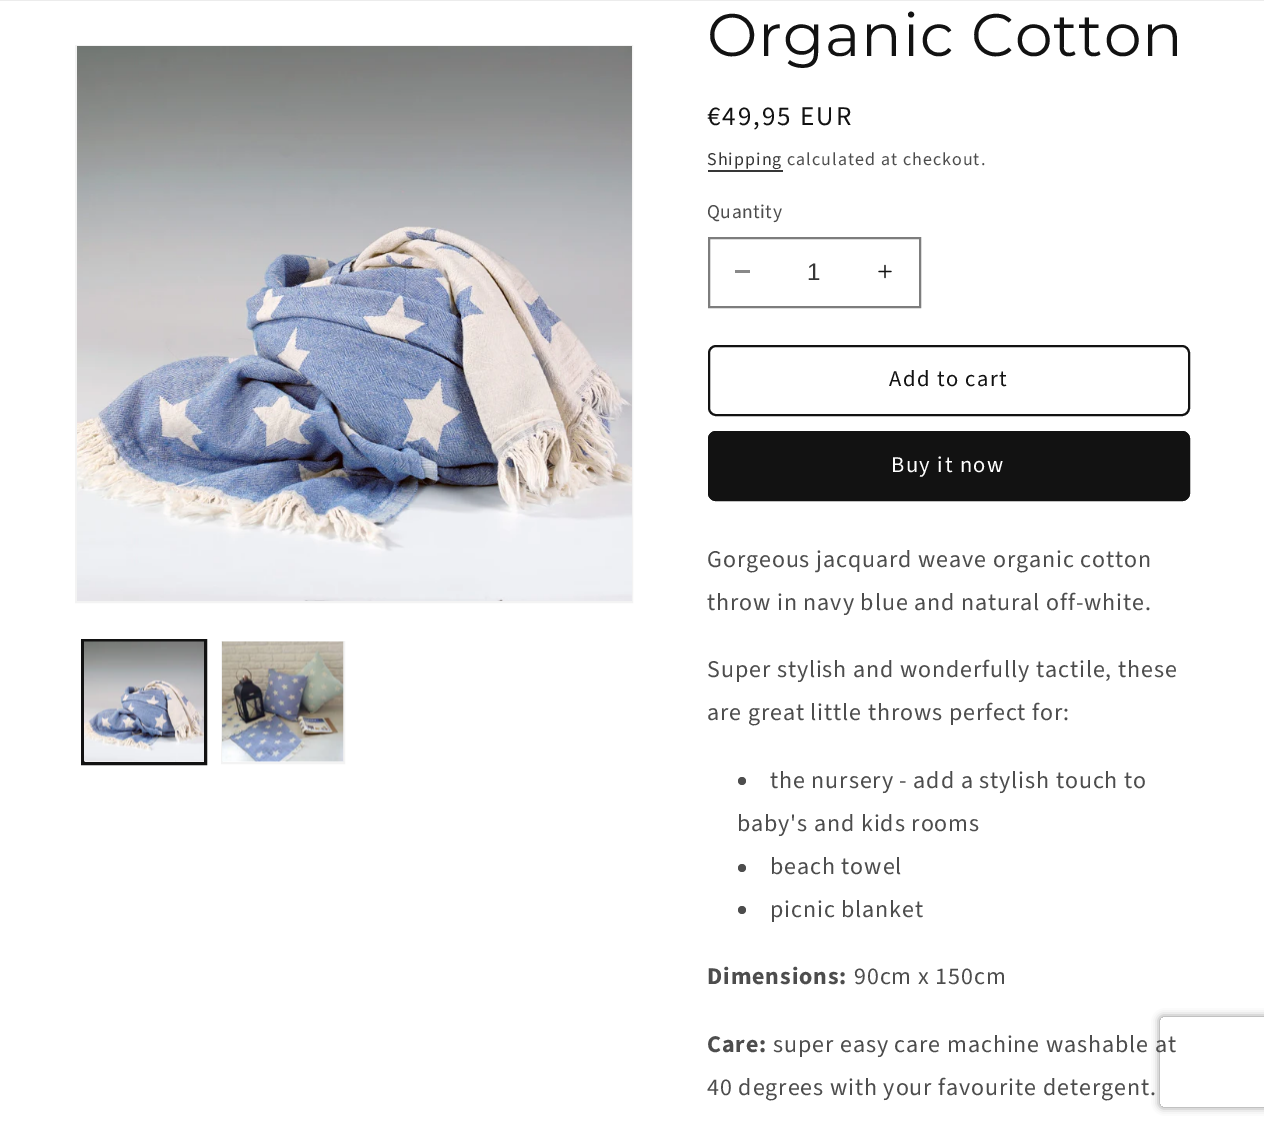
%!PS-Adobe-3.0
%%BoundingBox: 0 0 1264 1128
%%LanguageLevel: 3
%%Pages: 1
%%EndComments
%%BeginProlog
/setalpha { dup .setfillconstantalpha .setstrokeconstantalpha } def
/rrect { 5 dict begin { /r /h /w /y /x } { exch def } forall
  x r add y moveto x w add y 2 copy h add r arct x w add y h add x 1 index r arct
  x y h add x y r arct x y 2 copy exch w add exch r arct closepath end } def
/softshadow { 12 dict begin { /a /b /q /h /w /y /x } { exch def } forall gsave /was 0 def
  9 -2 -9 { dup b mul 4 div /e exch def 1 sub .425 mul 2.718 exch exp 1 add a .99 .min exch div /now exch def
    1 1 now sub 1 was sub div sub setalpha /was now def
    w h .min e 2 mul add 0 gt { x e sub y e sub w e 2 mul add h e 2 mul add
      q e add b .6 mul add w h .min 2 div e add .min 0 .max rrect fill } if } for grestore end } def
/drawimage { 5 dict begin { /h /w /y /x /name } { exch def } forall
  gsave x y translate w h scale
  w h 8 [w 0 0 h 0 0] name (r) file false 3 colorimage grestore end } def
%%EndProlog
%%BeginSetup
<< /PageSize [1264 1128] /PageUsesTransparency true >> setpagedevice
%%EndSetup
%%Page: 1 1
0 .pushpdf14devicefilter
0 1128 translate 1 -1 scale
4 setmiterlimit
1 setgray
0 0 1264 1128 rectfill
0.925 setgray
0 0 1264 1 rectfill
0.953 setgray
2 setlinewidth
76 46 556 556 rectstroke
(images/1.raw) 77 46 555 555 drawimage
0.071 setgray
82 640 124 124 rectstroke
84 642 121 121 rectstroke
(images/2.raw) 84 641 120 121 drawimage
0.953 setgray
222 642 122 121 rectstroke
(images/3.raw) 222 641 122 121 drawimage
0.212 setgray
708 170 75 2 rectfill
0.537 setgray
735 270 15 3 rectfill
(images/4.raw) 878 264 14 15 drawimage
0.49 setgray
709 238 211 69 rectstroke
0.071 setgray
709 346 480 69 7 rrect stroke
708 431 482 70 8 rrect fill
709 432 480 68 7 rrect stroke
0.302 setgray
newpath 742 781 4 0 360 arc closepath fill
newpath 742 868 4 0 360 arc closepath fill
newpath 742 910 4 0 360 arc closepath fill
gsave
newpath 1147 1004 moveto 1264 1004 lineto 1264 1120 lineto 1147 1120 lineto closepath 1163 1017 moveto 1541 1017 lineto 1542.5 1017 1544 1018.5 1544 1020 curveto 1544 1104 lineto 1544 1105.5 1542.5 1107 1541 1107 curveto 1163 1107 lineto 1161.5 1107 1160 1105.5 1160 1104 curveto 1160 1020 lineto 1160 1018.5 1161.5 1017 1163 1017 curveto closepath eoclip newpath
0.502 setgray
1160 1017 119 90 3 4 1 softshadow
grestore
/Montserrat-Regular [60 0 0 -60 0 0] selectfont
0.071 setgray
707 56 moveto 0.9 0 (Organic Cotton) ashow
/SourceSansPro-Regular [27 0 0 -27 0 0] selectfont
707 125 moveto 2 0 (€49,95 EUR) ashow
/SourceSansPro-Regular [18 0 0 -18 0 0] selectfont
0.212 setgray
707 165 moveto 1.05 0 (Shipping) ashow
0.302 setgray
787 165 moveto 1.05 0 (calculated at checkout.) ashow
/SourceSansPro-Regular [19.5 0 0 -19.5 0 0] selectfont
707 218 moveto 0.5 0 (Quantity) ashow
/LiberationSans-Regular [24 0 0 -24 0 0] selectfont
0.212 setgray
807 280 moveto (1) show
/SourceSansPro-Regular [22.5 0 0 -22.5 0 0] selectfont
0.071 setgray
889 386 moveto 1.5 0 (Add to cart) ashow
1 setgray
891 472 moveto 1.5 0 (Buy it now) ashow
/SourceSansPro-Regular [24 0 0 -24 0 0] selectfont
0.302 setgray
707 567 moveto 0.9 0 (Gorgeous jacquard weave organic cotton) ashow
707 610 moveto 0.9 0 (throw in navy blue and natural off-white.) ashow
707 677 moveto 0.9 0 (Super stylish and wonderfully tactile, these) ashow
707 720 moveto 0.9 0 (are great little throws perfect for:) ashow
770 788 moveto 0.9 0 (the nursery - add a stylish touch to) ashow
737 831 moveto 0.9 0 (baby's and kids rooms) ashow
770 874 moveto 0.9 0 (beach towel) ashow
770 917 moveto 0.9 0 (picnic blanket) ashow
/SourceSansPro-Bold [24 0 0 -24 0 0] selectfont
707 984 moveto 0.9 0 (Dimensions:) ashow
/SourceSansPro-Regular [24 0 0 -24 0 0] selectfont
854 984 moveto 0.9 0 (90cm x 150cm) ashow
/SourceSansPro-Bold [24 0 0 -24 0 0] selectfont
707 1052 moveto 0.9 0 (Care:) ashow
/SourceSansPro-Regular [24 0 0 -24 0 0] selectfont
773 1052 moveto 0.9 0 (super easy care machine washable at) ashow
707 1095 moveto 0.9 0 (40 degrees with your favourite detergent.) ashow
.poppdf14devicefilter showpage
%%EOF
